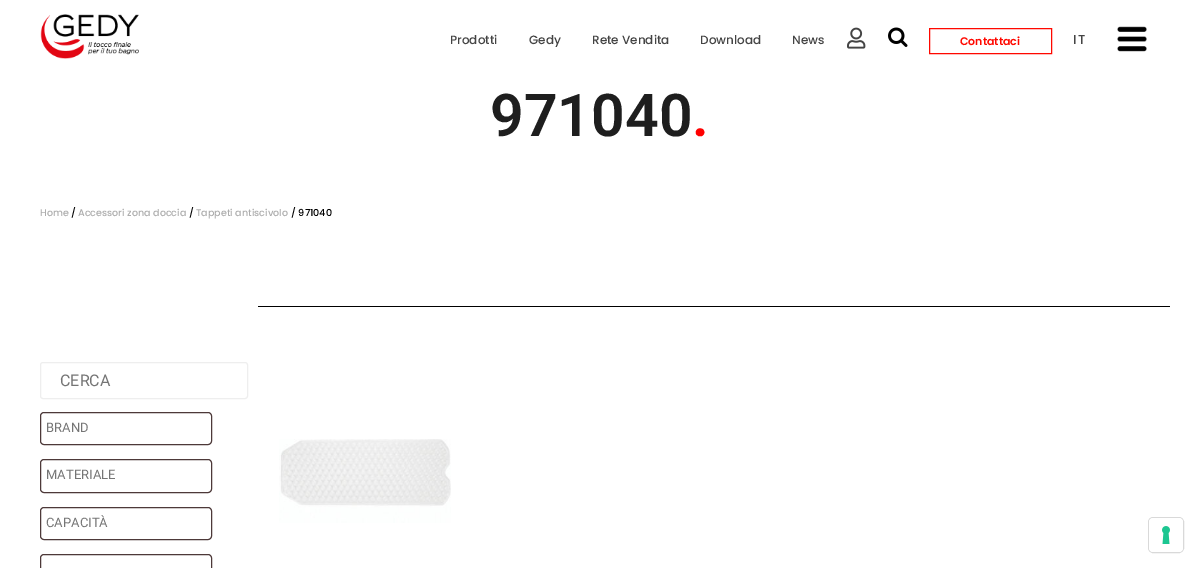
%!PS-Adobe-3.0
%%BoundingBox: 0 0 1199 568
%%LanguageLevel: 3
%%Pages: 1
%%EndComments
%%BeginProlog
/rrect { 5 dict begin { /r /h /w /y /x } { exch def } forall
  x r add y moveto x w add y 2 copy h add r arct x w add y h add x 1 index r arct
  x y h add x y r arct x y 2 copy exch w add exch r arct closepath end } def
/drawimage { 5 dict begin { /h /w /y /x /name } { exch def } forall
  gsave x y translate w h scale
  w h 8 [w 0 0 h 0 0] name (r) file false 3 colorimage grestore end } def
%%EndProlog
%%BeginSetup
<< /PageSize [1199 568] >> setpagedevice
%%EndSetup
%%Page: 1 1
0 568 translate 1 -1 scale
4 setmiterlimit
1 setgray
0 0 1199 568 rectfill
(images/1.raw) 40 14 99 45 drawimage
(images/2.raw) 847 27 19 22 drawimage
(images/3.raw) 888 27 20 20 drawimage
1 0.031 0 setrgbcolor
929.5 28.5 122 25 rectstroke
(images/4.raw) 1117 26 30 26 drawimage
0 setgray
258 306 912 1 rectfill
0.933 setgray
40.5 362.5 207 36 2.5 rrect stroke
0.302 0.224 0.224 setrgbcolor
40.5 412.5 171 32 3.5 rrect stroke
40.5 459.5 171 33 3.5 rrect stroke
40.5 507.5 171 32 3.5 rrect stroke
40.5 554.5 171 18 3.5 rrect stroke
(images/5.raw) 279 439 172 84 drawimage
0.851 setgray
1148.5 517.5 35 35 4.5 rrect stroke
1 setgray
1149 518 34 34 4 rrect fill
(images/6.raw) 1162 526 8 18 drawimage
/Poppins-Medium [12 0 0 -12 0 0] selectfont
0.267 setgray
450 44 moveto (Prodotti) show
529 44 moveto (Gedy) show
592 44 moveto (Rete Vendita) show
700 44 moveto (Download) show
792 44 moveto (News) show
/Poppins-SemiBold [11 0 0 -11 0 0] selectfont
1 0.031 0 setrgbcolor
960 45 moveto (Contattaci) show
/Poppins-Medium [13 0 0 -13 0 0] selectfont
0.267 setgray
1073 44 moveto 2 0 (IT) ashow
/Roboto-SemiBold [59 0 0 -59 0 0] selectfont
0.118 setgray
490 136 moveto (971040) show
1 0 0 setrgbcolor
692 136 moveto (.) show
/Poppins-Medium [9.6 0 0 -9.6 0 0] selectfont
0.678 setgray
40 216 moveto (Home) show
0 setgray
71 216 moveto (/) show
0.678 setgray
78 216 moveto (Accessori zona doccia) show
0 setgray
189 216 moveto (/) show
0.678 setgray
196 216 moveto (Tappeti antiscivolo) show
0 setgray
291 216 moveto (/ 971040) show
/Roboto-Regular [16 0 0 -16 0 0] selectfont
0.459 setgray
60 386 moveto (CERCA) show
/Roboto-Regular [13 0 0 -13 0 0] selectfont
46 432 moveto (BRAND) show
46 479 moveto (MATERIALE) show
46 527 moveto (CAPACITÀ) show
showpage
%%EOF
